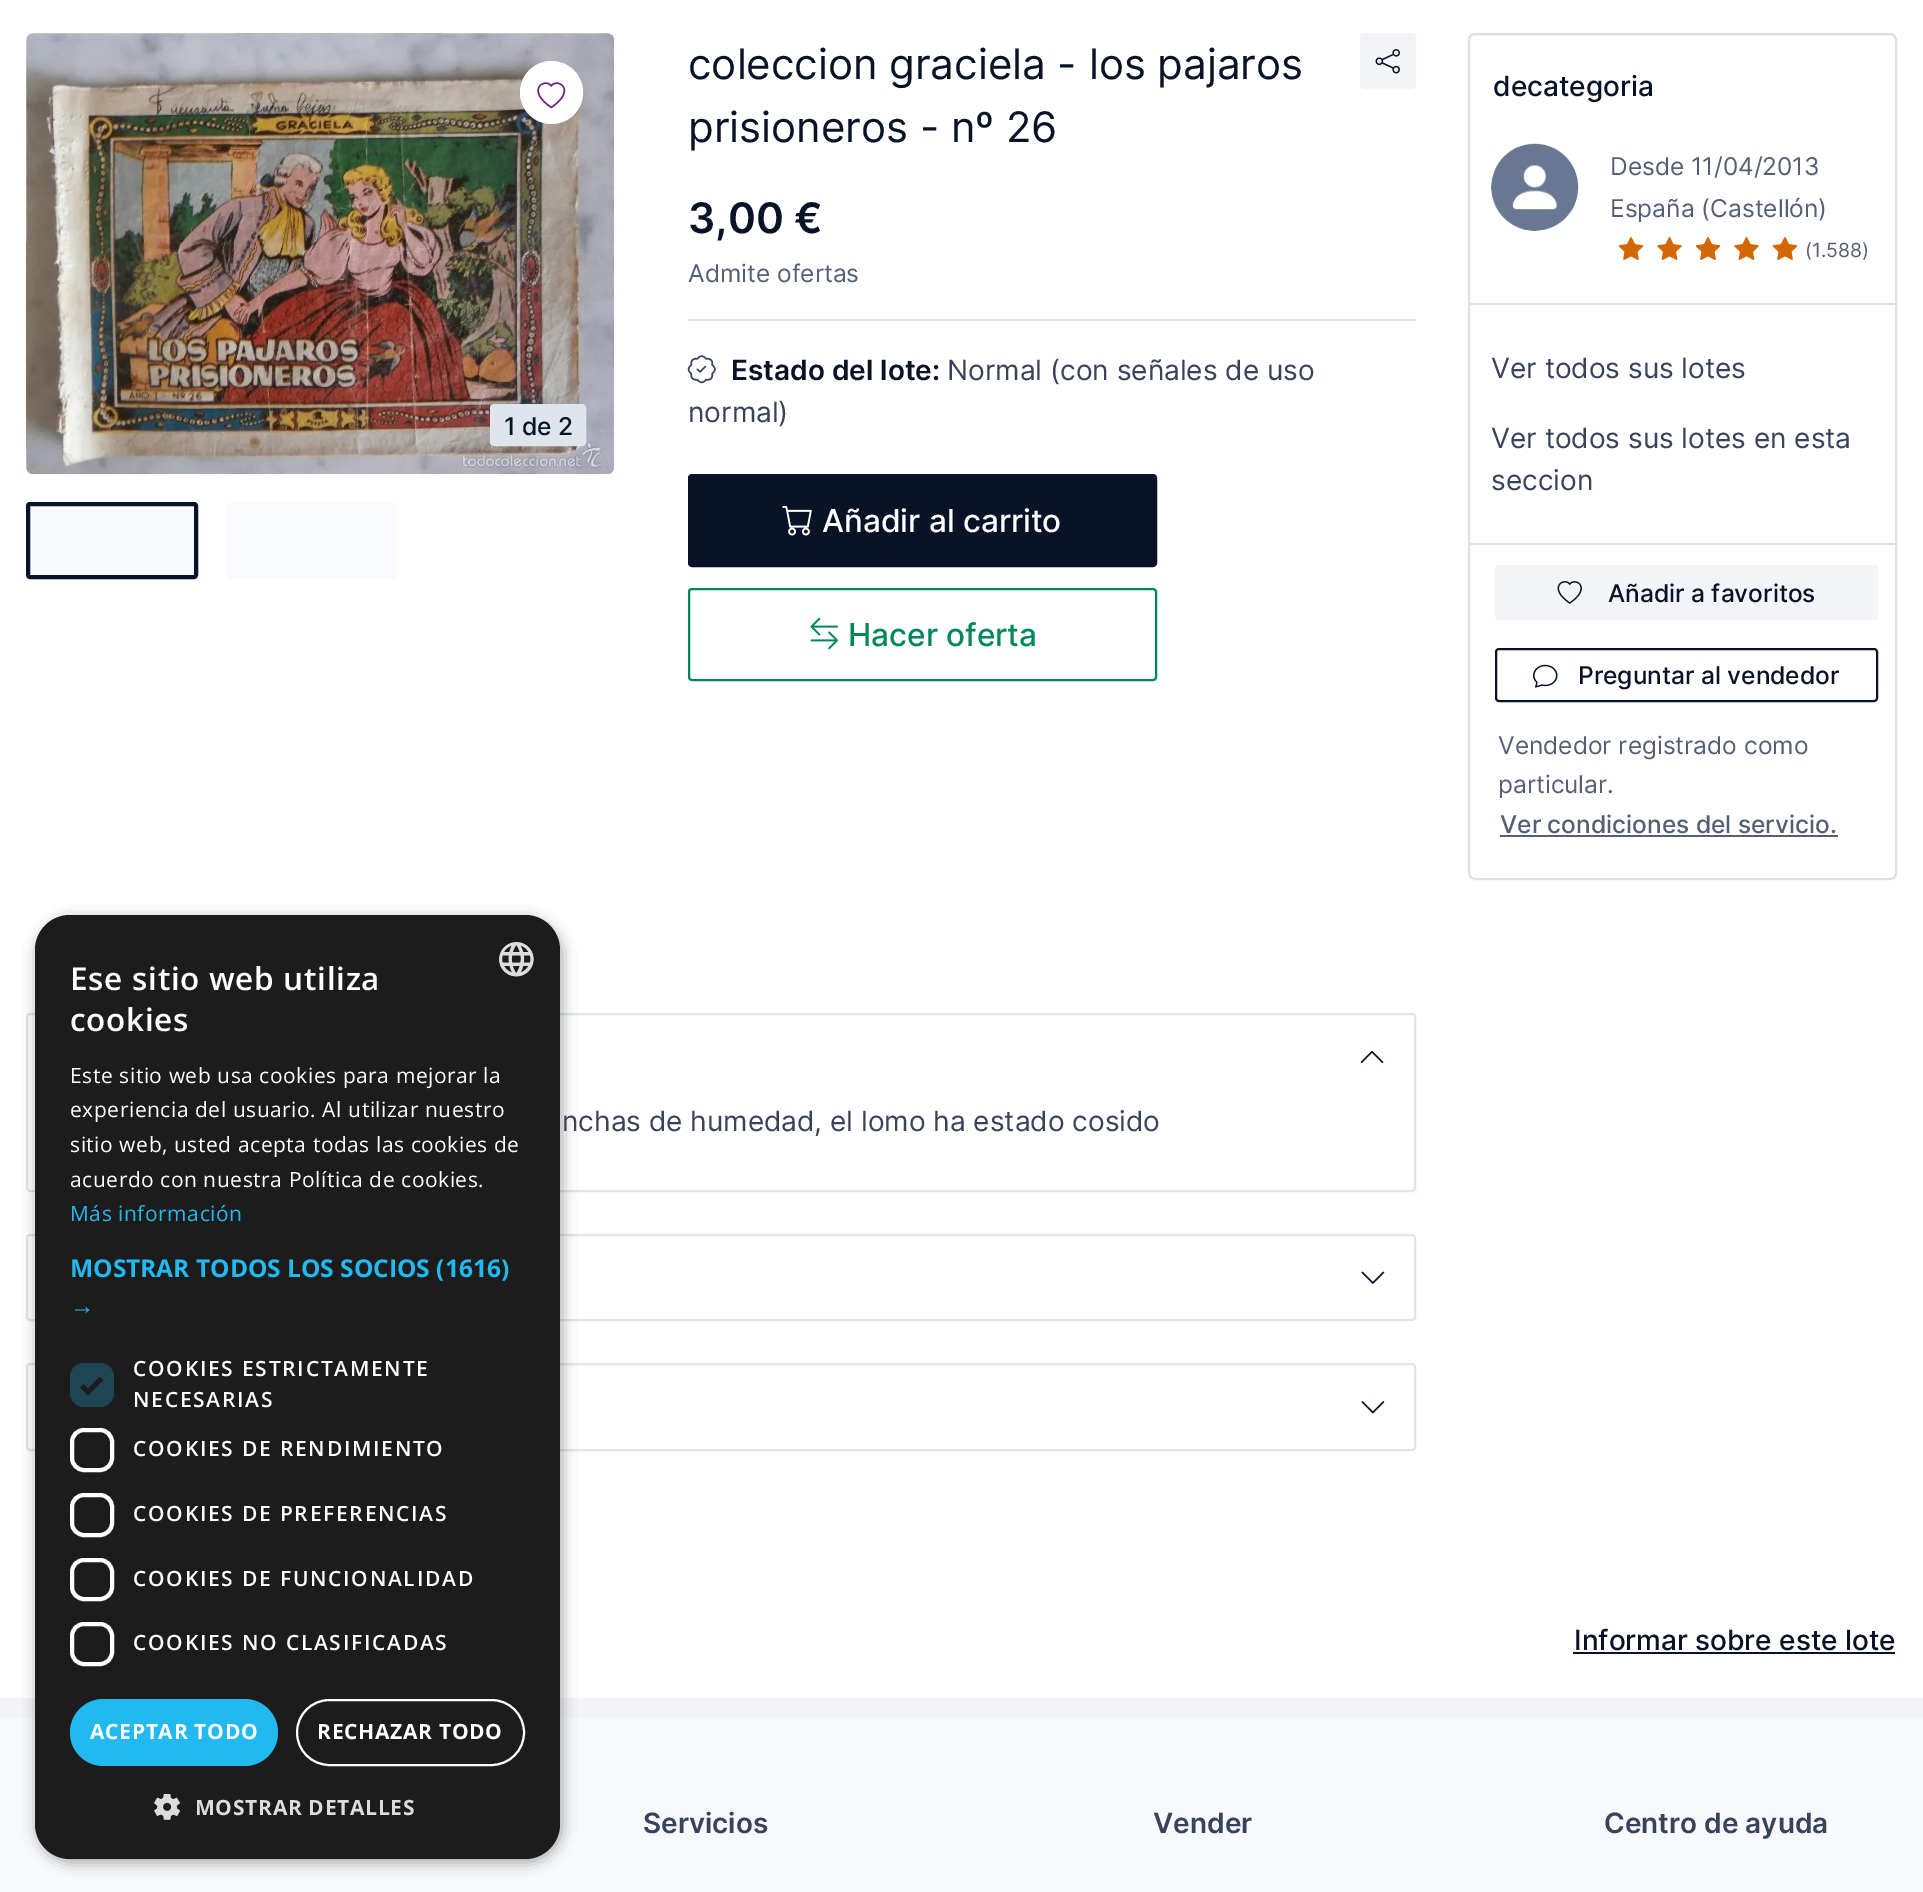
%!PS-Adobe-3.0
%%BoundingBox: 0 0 1923 1892
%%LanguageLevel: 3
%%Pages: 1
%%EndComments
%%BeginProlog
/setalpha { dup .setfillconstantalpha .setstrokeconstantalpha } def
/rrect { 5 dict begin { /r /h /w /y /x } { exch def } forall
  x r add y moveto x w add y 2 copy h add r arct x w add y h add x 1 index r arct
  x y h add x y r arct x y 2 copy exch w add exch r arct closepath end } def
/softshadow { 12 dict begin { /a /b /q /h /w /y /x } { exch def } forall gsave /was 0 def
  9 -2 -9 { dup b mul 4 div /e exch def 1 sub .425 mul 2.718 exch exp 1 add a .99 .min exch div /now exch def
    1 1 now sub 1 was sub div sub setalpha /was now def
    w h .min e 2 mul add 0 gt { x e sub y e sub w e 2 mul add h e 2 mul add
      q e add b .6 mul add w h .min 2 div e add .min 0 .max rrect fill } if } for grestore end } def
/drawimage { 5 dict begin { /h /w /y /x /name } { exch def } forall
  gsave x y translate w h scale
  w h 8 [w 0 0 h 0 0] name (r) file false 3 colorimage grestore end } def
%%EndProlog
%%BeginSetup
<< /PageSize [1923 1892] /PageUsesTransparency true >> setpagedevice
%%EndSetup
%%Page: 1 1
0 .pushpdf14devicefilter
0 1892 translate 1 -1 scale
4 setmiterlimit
1 setgray
0 0 1923 1892 rectfill
0.875 0.898 0.925 setrgbcolor
2 setlinewidth
27 1014 1388 177 3 rrect stroke
27 1235 1388 85 3 rrect stroke
27 1364 1388 86 3 rrect stroke
0.973 0.976 0.988 setrgbcolor
0 1719 1923 173 rectfill
0.949 0.957 0.973 setrgbcolor
0 1698 1923 21 rectfill
0 setgray
37 919 525 943 35 7 0.35 softshadow
0.11 setgray
35 915 525 944 35 rrect fill
(images/1.raw) 499 942 35 35 drawimage
0.118 0.271 0.325 setrgbcolor
70 1363 44 44 14 rrect fill
0.11 setgray
4.6 setlinewidth
newpath 82 1386 moveto 88 1392 lineto 101.5 1378.5 lineto stroke
1 setgray
4 setlinewidth
72 1430 40 40 12 rrect stroke
72 1495 40 40 12 rrect stroke
72 1560 40 39 12 rrect stroke
72 1624 40 40 12 rrect stroke
0.133 0.722 0.941 setrgbcolor
70 1699 208 67 33.5 rrect fill
1 setgray
2 setlinewidth
297 1700 227 65 32.5 rrect stroke
(images/2.raw) 154 1794 26 26 drawimage
0.973 0.976 0.988 setrgbcolor
26 33 588 441 7 rrect fill
(images/4.raw) 26 33 588 441 drawimage
1 setgray
newpath 551.5 92.5 31.5 0 360 arc closepath fill
(images/3.raw) 537 82 29 27 drawimage
0.875 0.898 0.925 setrgbcolor
491 405 94 40 3 rrect gsave fill grestore
stroke
0.973 0.976 0.988 setrgbcolor
28 504 168 73 2 rrect gsave fill grestore
0.031 0.075 0.153 setrgbcolor
4 setlinewidth
stroke
0.976 0.98 0.992 setrgbcolor
226 502 171 77 4 rrect fill
0.949 0.957 0.973 setrgbcolor
1361 34 54 54 3 rrect gsave fill grestore
2 setlinewidth
stroke
(images/5.raw) 1375 49 25 25 drawimage
0.875 0.898 0.925 setrgbcolor
688 319 728 2 rectfill
(images/6.raw) 687 355 29 29 drawimage
0.031 0.075 0.153 setrgbcolor
689 475 467 91 3 rrect gsave fill grestore
stroke
(images/7.raw) 782 506 30 30 drawimage
0 0.533 0.341 setrgbcolor
689 589 467 91 3 rrect stroke
(images/8.raw) 810 617 28 33 drawimage
0.875 setgray
1469 34 427 845 6 rrect stroke
1470 303 425 2 rectfill
(images/9.raw) 1491 143 88 88 drawimage
(images/10.raw) 1618 237 26 23 drawimage
(images/11.raw) 1657 237 25 23 drawimage
(images/10.raw) 1695 237 26 23 drawimage
(images/11.raw) 1734 237 25 23 drawimage
(images/10.raw) 1772 237 26 23 drawimage
1470 543 425 2 rectfill
0.949 0.957 0.973 setrgbcolor
1496 566 381 53 3 rrect gsave fill grestore
stroke
(images/12.raw) 1557 581 25 23 drawimage
0.031 0.075 0.153 setrgbcolor
1496 649 381 52 3 rrect stroke
(images/13.raw) 1533 664 25 24 drawimage
0.325 0.373 0.455 setrgbcolor
1500 835 338 2 rectfill
(images/14.raw) 1360 1050 24 14 drawimage
(images/15.raw) 1361 1271 24 13 drawimage
(images/16.raw) 1361 1401 24 13 drawimage
0.031 0.075 0.153 setrgbcolor
1573 1652 322 2 rectfill
/OpenSans-SemiBold [31.5 0 0 -31.5 0 0] selectfont
1 setgray
70 990 moveto 0.7 0 (Ese sitio web utiliza) ashow
70 1031 moveto 0.7 0 (cookies) ashow
/OpenSans-Regular [21 0 0 -21 0 0] selectfont
70 1083 moveto 0.55 0 (Este sitio web usa cookies para mejorar la) ashow
70 1117 moveto 0.55 0 (experiencia del usuario. Al utilizar nuestro) ashow
70 1152 moveto 0.55 0 (sitio web, usted acepta todas las cookies de) ashow
70 1187 moveto 0.55 0 (acuerdo con nuestra Política de cookies.) ashow
0.133 0.722 0.941 setrgbcolor
70 1221 moveto 0.55 0 (Más información) ashow
/OpenSans-Bold [24.5 0 0 -24.5 0 0] selectfont
70 1277 moveto (MOSTRAR TODOS LOS SOCIOS \(1616\)) show
/LiberationSans-Bold [24.5 0 0 -24.5 0 0] selectfont
70 1314 moveto (→) show
/OpenSans-SemiBold [21 0 0 -21 0 0] selectfont
1 setgray
133 1376 moveto 1.75 0 (COOKIES ESTRICTAMENTE) ashow
133 1407 moveto 1.75 0 (NECESARIAS) ashow
133 1456 moveto 1.75 0 (COOKIES DE RENDIMIENTO) ashow
133 1521 moveto 1.75 0 (COOKIES DE PREFERENCIAS) ashow
133 1586 moveto 1.75 0 (COOKIES DE FUNCIONALIDAD) ashow
133 1650 moveto 1.75 0 (COOKIES NO CLASIFICADAS) ashow
/OpenSans-Bold [21 0 0 -21 0 0] selectfont
90 1739 moveto 0.7 0 (ACEPTAR TODO) ashow
317 1739 moveto 0.7 0 (RECHAZAR TODO) ashow
0.867 setgray
195 1815 moveto 0.7 0 (MOSTRAR DETALLES) ashow
/Inter-Medium [24.5 0 0 -24.5 0 0] selectfont
0.031 0.075 0.153 setrgbcolor
504 435 moveto (1 de 2) show
/Inter-Regular [42 0 0 -42 0 0] selectfont
688 79 moveto (coleccion graciela - los pajaros) show
688 142 moveto (prisioneros - nº 26) show
/Inter-SemiBold [42 0 0 -42 0 0] selectfont
688 233 moveto (3,00 €) show
/Inter-Regular [24.5 0 0 -24.5 0 0] selectfont
0.325 0.373 0.455 setrgbcolor
688 282 moveto (Admite ofertas) show
/Inter-SemiBold [28 0 0 -28 0 0] selectfont
0.031 0.075 0.153 setrgbcolor
731 380 moveto (Estado del lote:) show
/Inter-Regular [28 0 0 -28 0 0] selectfont
0.212 0.263 0.353 setrgbcolor
947 380 moveto (Normal \(con señales de uso) show
688 422 moveto (normal\)) show
/Inter-Medium [31.5 0 0 -31.5 0 0] selectfont
1 setgray
822 532 moveto (Añadir al carrito) show
0 0.533 0.341 setrgbcolor
848 646 moveto (Hacer oferta) show
/Inter-Medium [28 0 0 -28 0 0] selectfont
0.031 0.075 0.153 setrgbcolor
1493 96 moveto (decategoria) show
/Inter-Regular [24.5 0 0 -24.5 0 0] selectfont
0.325 0.373 0.455 setrgbcolor
1610 175 moveto (Desde 11/04/2013) show
1610 217 moveto (España \(Castellón\)) show
/Inter-Regular [19.5 0 0 -19.5 0 0] selectfont
1805 257 moveto (\(1.588\)) show
/Inter-Regular [28 0 0 -28 0 0] selectfont
0.212 0.263 0.353 setrgbcolor
1491 378 moveto (Ver todos sus lotes) show
1491 448 moveto (Ver todos sus lotes en esta) show
1491 490 moveto (seccion) show
/Inter-Medium [24.5 0 0 -24.5 0 0] selectfont
0.031 0.075 0.153 setrgbcolor
1608 602 moveto (Añadir a favoritos) show
1578 684 moveto (Preguntar al vendedor) show
/Inter-Regular [24.5 0 0 -24.5 0 0] selectfont
0.325 0.373 0.455 setrgbcolor
1498 754 moveto (Vendedor registrado como) show
1498 793 moveto (particular.) show
/Inter-Medium [24.5 0 0 -24.5 0 0] selectfont
1500 833 moveto (Ver condiciones del servicio.) show
/Inter-Regular [28 0 0 -28 0 0] selectfont
0.212 0.263 0.353 setrgbcolor
562 1131 moveto (nchas de humedad, el lomo ha estado cosido) show
/Inter-Medium [28 0 0 -28 0 0] selectfont
0.031 0.075 0.153 setrgbcolor
1574 1650 moveto (Informar sobre este lote) show
/Inter-SemiBold [28 0 0 -28 0 0] selectfont
0.212 0.263 0.353 setrgbcolor
643 1833 moveto (Servicios) show
1153 1833 moveto (Vender) show
1604 1833 moveto (Centro de ayuda) show
.poppdf14devicefilter showpage
%%EOF
